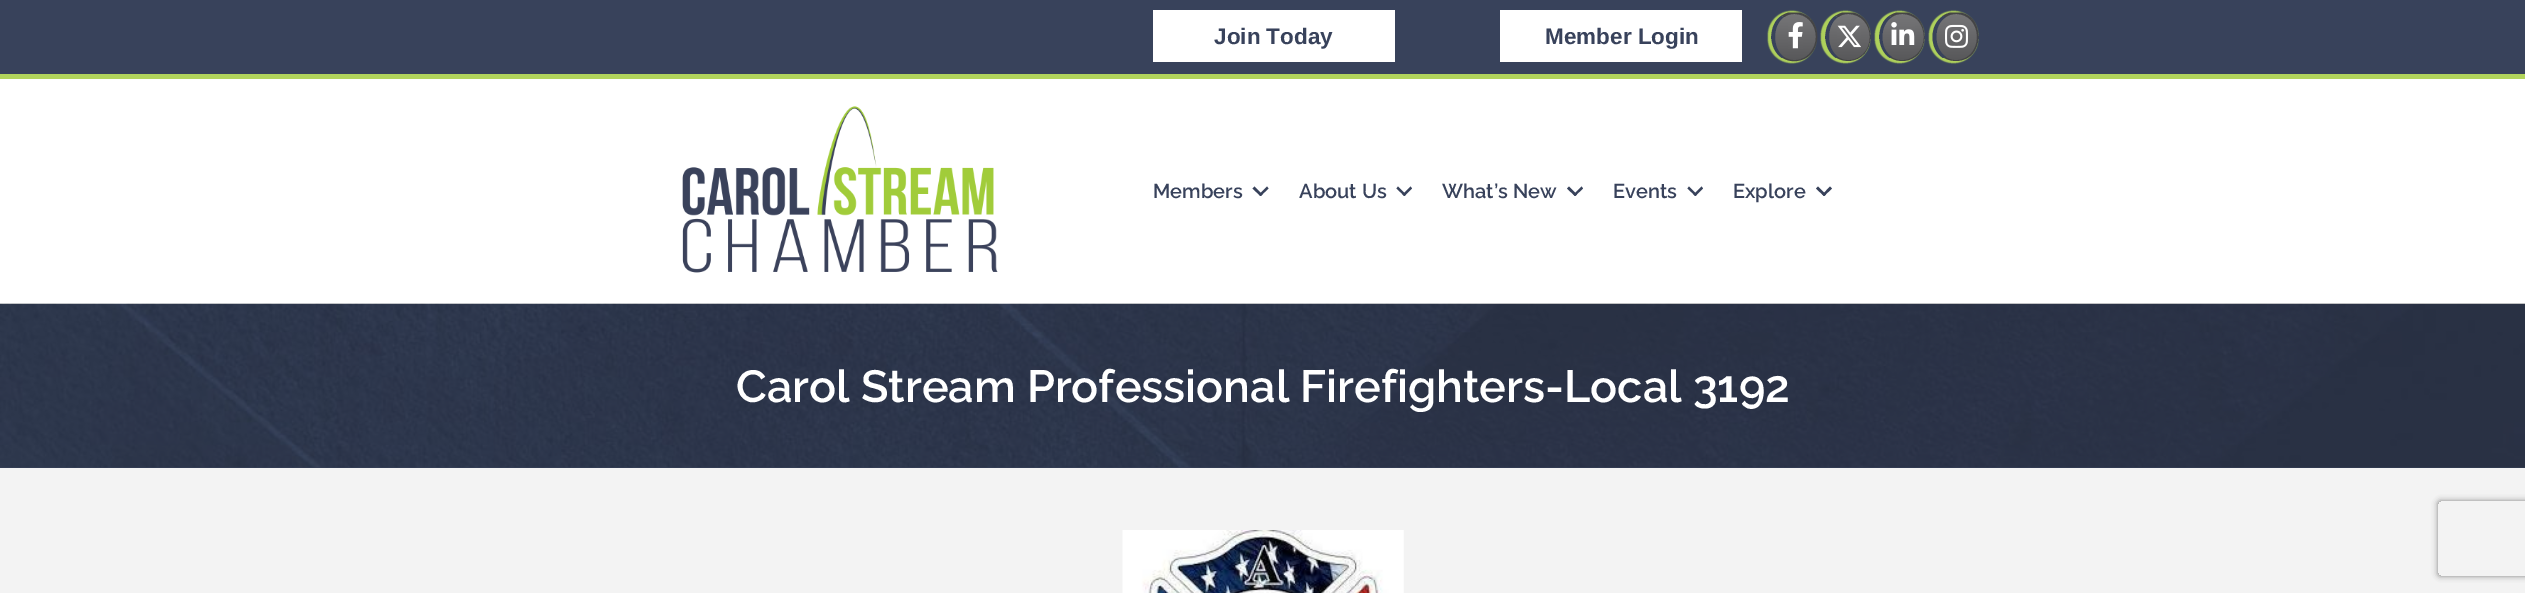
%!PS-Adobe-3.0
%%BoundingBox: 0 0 2525 593
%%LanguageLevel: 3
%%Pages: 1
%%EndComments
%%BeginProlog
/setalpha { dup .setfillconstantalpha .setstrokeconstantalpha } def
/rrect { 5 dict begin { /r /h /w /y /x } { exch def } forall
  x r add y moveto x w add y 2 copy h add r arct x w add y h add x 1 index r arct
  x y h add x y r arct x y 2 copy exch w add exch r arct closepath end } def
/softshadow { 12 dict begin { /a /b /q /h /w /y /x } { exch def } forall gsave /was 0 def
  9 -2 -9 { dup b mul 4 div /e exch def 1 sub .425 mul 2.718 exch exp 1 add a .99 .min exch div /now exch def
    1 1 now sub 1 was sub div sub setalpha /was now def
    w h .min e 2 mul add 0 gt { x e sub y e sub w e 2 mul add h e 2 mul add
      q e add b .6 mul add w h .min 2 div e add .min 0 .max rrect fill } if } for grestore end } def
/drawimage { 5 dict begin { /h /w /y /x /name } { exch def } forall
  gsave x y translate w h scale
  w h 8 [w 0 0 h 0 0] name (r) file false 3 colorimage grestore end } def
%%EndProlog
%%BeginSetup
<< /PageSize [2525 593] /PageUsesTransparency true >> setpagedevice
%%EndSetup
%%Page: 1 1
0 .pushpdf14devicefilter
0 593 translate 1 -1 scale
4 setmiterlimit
1 setgray
0 0 2525 593 rectfill
0.22 0.259 0.357 setrgbcolor
0 0 2525 74 rectfill
0.694 0.831 0.361 setrgbcolor
0 74 2525 5 rectfill
1 setgray
1153 10 242 52 rectfill
1500 10 242 52 rectfill
gsave
newpath 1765 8 moveto 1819 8 lineto 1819 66 lineto 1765 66 lineto closepath 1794.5 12.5 moveto 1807 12.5 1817.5 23.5 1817.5 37 curveto 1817.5 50.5 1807 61 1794.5 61 curveto 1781.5 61 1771 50.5 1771 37 curveto 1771 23.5 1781.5 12.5 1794.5 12.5 curveto closepath eoclip newpath
0.694 0.831 0.361 setrgbcolor
1768 11 48 52 24 0.5 1 softshadow
grestore
gsave newpath 1794 14 moveto 1823 14 1823 60 1794 60 curveto 1769 60 1769 14 1794 14 curveto closepath clip newpath
<< /ShadingType 2 /ColorSpace /DeviceRGB /Coords [1796 14 1796 60] /Extend [true true] /Function << /FunctionType 2 /Domain [0 1] /C0 [0.463 0.463 0.471] /C1 [0.345 0.345 0.353] /N 1 >> >> shfill grestore
0.267 0.267 0.275 setrgbcolor
newpath 1794 14 moveto 1790 14 1787 15 1784.5 17 curveto 1781 16 lineto 1783.5 14.5 1786 13 1789 12.5 curveto 1799 12.5 lineto 1804 13.5 1808 16 1811 19 curveto 1809.5 20.5 lineto 1806 16.5 1801 14 1794 14 curveto closepath fill
newpath 1811 19 moveto 1819.5 28.5 1819.5 45 1810.5 54.5 curveto 1809.5 53.5 lineto 1818 44.5 1818 29 1809.5 20.5 curveto closepath fill
newpath 1810.5 54.5 moveto 1803.5 62 1790.5 63.5 1782 57.5 curveto 1784 57 lineto 1792 62.5 1803.5 60.5 1809.5 53.5 curveto closepath fill
0.22 0.259 0.357 setrgbcolor
newpath 1782 58 moveto 1768 49 1768 25 1781 16 curveto 1784 17 lineto 1772 25 1772 49 1784 57 curveto closepath fill
(images/1.raw) 1788 22 15 27 drawimage
gsave
newpath 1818 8 moveto 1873 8 lineto 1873 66 lineto 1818 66 lineto closepath 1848 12.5 moveto 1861 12.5 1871 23.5 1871 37 curveto 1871 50.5 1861 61 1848 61 curveto 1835.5 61 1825 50.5 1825 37 curveto 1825 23.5 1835.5 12.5 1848 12.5 curveto closepath eoclip newpath
0.694 0.831 0.361 setrgbcolor
1821 11 49 52 24.5 0.5 1 softshadow
grestore
gsave newpath 1848 14 moveto 1877 14 1877 60 1848 60 curveto 1823 60 1823 14 1848 14 curveto closepath clip newpath
<< /ShadingType 2 /ColorSpace /DeviceRGB /Coords [1849 14 1849 60] /Extend [true true] /Function << /FunctionType 2 /Domain [0 1] /C0 [0.463 0.463 0.471] /C1 [0.345 0.345 0.353] /N 1 >> >> shfill grestore
0.267 0.267 0.275 setrgbcolor
newpath 1848 14 moveto 1844 14 1841 15 1838.5 17 curveto 1835 16 lineto 1837.5 14.5 1840 13 1843 12.5 curveto 1853 12.5 lineto 1858 13.5 1861.5 16 1864.5 19 curveto 1863.5 20.5 lineto 1860 16.5 1854.5 14 1848 14 curveto closepath fill
newpath 1864.5 19 moveto 1872.5 28.5 1872.5 45 1864 54 curveto 1863.5 53.5 lineto 1872 45 1872 29 1863.5 20.5 curveto closepath fill
newpath 1864 54 moveto 1857 62 1844.5 63 1836 57.5 curveto 1838 57 lineto 1845.5 62.5 1857.5 60.5 1863.5 53.5 curveto closepath fill
0.22 0.259 0.357 setrgbcolor
newpath 1836 58 moveto 1822 49 1822 25 1835 16 curveto 1838 17 lineto 1826 25 1826 48 1838 57 curveto closepath fill
(images/2.raw) 1837 25 24 23 drawimage
gsave
newpath 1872 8 moveto 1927 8 lineto 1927 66 lineto 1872 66 lineto closepath 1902 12.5 moveto 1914.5 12.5 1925 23.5 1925 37 curveto 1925 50.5 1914.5 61 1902 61 curveto 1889 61 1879 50.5 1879 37 curveto 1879 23.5 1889 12.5 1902 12.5 curveto closepath eoclip newpath
0.694 0.831 0.361 setrgbcolor
1875 11 49 52 24.5 0.5 1 softshadow
grestore
gsave newpath 1902 14 moveto 1931 14 1931 60 1902 60 curveto 1876 60 1876 14 1902 14 curveto closepath clip newpath
<< /ShadingType 2 /ColorSpace /DeviceRGB /Coords [1903 14 1903 60] /Extend [true true] /Function << /FunctionType 2 /Domain [0 1] /C0 [0.463 0.463 0.471] /C1 [0.345 0.345 0.353] /N 1 >> >> shfill grestore
0.267 0.267 0.275 setrgbcolor
newpath 1902 14 moveto 1898 14 1894.5 15 1892 17 curveto 1889 16 lineto 1891.5 14.5 1894 13 1897 12.5 curveto 1907 12.5 lineto 1912 13.5 1915.5 16 1918.5 19 curveto 1917.5 20 lineto 1914 16.5 1908.5 14 1902 14 curveto closepath fill
newpath 1918.5 19 moveto 1926.5 28.5 1926.5 45 1918 54.5 curveto 1917.5 53.5 lineto 1926 45 1926 29 1917.5 20 curveto closepath fill
newpath 1918 54.5 moveto 1911 62 1898.5 63 1890 57.5 curveto 1891.5 57 lineto 1899.5 62.5 1911 60.5 1917.5 53.5 curveto closepath fill
0.22 0.259 0.357 setrgbcolor
newpath 1890 58 moveto 1876 49 1876 25 1889 16 curveto 1892 17 lineto 1879 25 1879 49 1892 57 curveto closepath fill
(images/3.raw) 1891 22 24 23 drawimage
gsave
newpath 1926 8 moveto 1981 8 lineto 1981 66 lineto 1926 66 lineto closepath 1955.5 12.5 moveto 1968.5 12.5 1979 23.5 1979 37 curveto 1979 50.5 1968.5 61 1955.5 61 curveto 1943 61 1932.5 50.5 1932.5 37 curveto 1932.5 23.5 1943 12.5 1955.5 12.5 curveto closepath eoclip newpath
0.694 0.831 0.361 setrgbcolor
1929 11 49 52 24.5 0.5 1 softshadow
grestore
gsave newpath 1956 14 moveto 1984 14 1984 60 1956 60 curveto 1930 60 1930 14 1956 14 curveto closepath clip newpath
<< /ShadingType 2 /ColorSpace /DeviceRGB /Coords [1957 14 1957 60] /Extend [true true] /Function << /FunctionType 2 /Domain [0 1] /C0 [0.463 0.463 0.471] /C1 [0.345 0.345 0.353] /N 1 >> >> shfill grestore
0.267 0.267 0.275 setrgbcolor
newpath 1956 14 moveto 1952 14 1948.5 15 1946 17 curveto 1942.5 16 lineto 1945 14.5 1947.5 13 1951 12.5 curveto 1961 12.5 lineto 1965.5 13.5 1969.5 16 1972.5 19 curveto 1971 20.5 lineto 1967.5 16.5 1962.5 14 1956 14 curveto closepath fill
newpath 1972.5 19 moveto 1980.5 28.5 1980.5 45 1972 54.5 curveto 1971 53.5 lineto 1979 45 1979 29 1971 20.5 curveto closepath fill
newpath 1972 54.5 moveto 1965 62 1952 63 1943.5 57.5 curveto 1945.5 57 lineto 1953.5 62.5 1965 60.5 1971 53.5 curveto closepath fill
0.22 0.259 0.357 setrgbcolor
newpath 1943 58 moveto 1929 49 1929 25 1943 16 curveto 1946 17 lineto 1933 25 1933 48 1946 57 curveto closepath fill
(images/4.raw) 1945 24 23 24 drawimage
(images/5.raw) 682 106 316 167 drawimage
newpath 1267 186.5 moveto 1268.5 188.5 lineto 1260.5 196 lineto 1259 194.5 lineto closepath fill
newpath 1254.5 186.5 moveto 1262.5 194.5 lineto 1260.5 196 lineto 1252.5 188.5 lineto closepath fill
newpath 1410.5 186.5 moveto 1412 188.5 lineto 1404.5 196 lineto 1402.5 194.5 lineto closepath fill
newpath 1398 186.5 moveto 1406 194.5 lineto 1404.5 196 lineto 1396.5 188.5 lineto closepath fill
newpath 1581.5 186.5 moveto 1583 188.5 lineto 1575 196 lineto 1573.5 194.5 lineto closepath fill
newpath 1569 186.5 moveto 1577 194.5 lineto 1575 196 lineto 1567 188.5 lineto closepath fill
newpath 1701.5 186.5 moveto 1703 188.5 lineto 1695.5 196 lineto 1693.5 194.5 lineto closepath fill
newpath 1689 186.5 moveto 1697 194.5 lineto 1695.5 196 lineto 1687.5 188.5 lineto closepath fill
newpath 1830 186.5 moveto 1832 188.5 lineto 1824 196 lineto 1822.5 194.5 lineto closepath fill
newpath 1818 186.5 moveto 1826 194.5 lineto 1824 196 lineto 1816 188.5 lineto closepath fill
0.953 setgray
0 468 2525 125 rectfill
0.22 0.259 0.357 setrgbcolor
0 467 2525 1 rectfill
(images/6.raw) 0 303 2525 165 drawimage
(images/7.raw) 1122 530 282 63 drawimage
gsave
newpath 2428 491 moveto 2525 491 lineto 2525 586 lineto 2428 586 lineto closepath 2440.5 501 moveto 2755.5 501 lineto 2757 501 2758 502 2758 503.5 curveto 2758 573.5 lineto 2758 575 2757 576 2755.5 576 curveto 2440.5 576 lineto 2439 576 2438 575 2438 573.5 curveto 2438 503.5 lineto 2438 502 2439 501 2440.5 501 curveto closepath eoclip newpath
0.502 setgray
2438 501 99 75 2.5 3 1 softshadow
grestore
/LiberationSans-Bold [22.5 0 0 -22.5 0 0] selectfont
1214 44 moveto (Join Today) show
1545 44 moveto (Member Login) show
/Raleway-SemiBold [20 0 0 -20 0 0] selectfont
1153 198 moveto (Members) show
1299 198 moveto (About Us) show
1442 198 moveto (What’s New) show
1613 198 moveto (Events) show
1733 198 moveto (Explore) show
/Raleway-SemiBold [45 0 0 -45 0 0] selectfont
1 setgray
736 402 moveto (Carol Stream Professional Firefighters-Local 3192) show
.poppdf14devicefilter showpage
%%EOF
